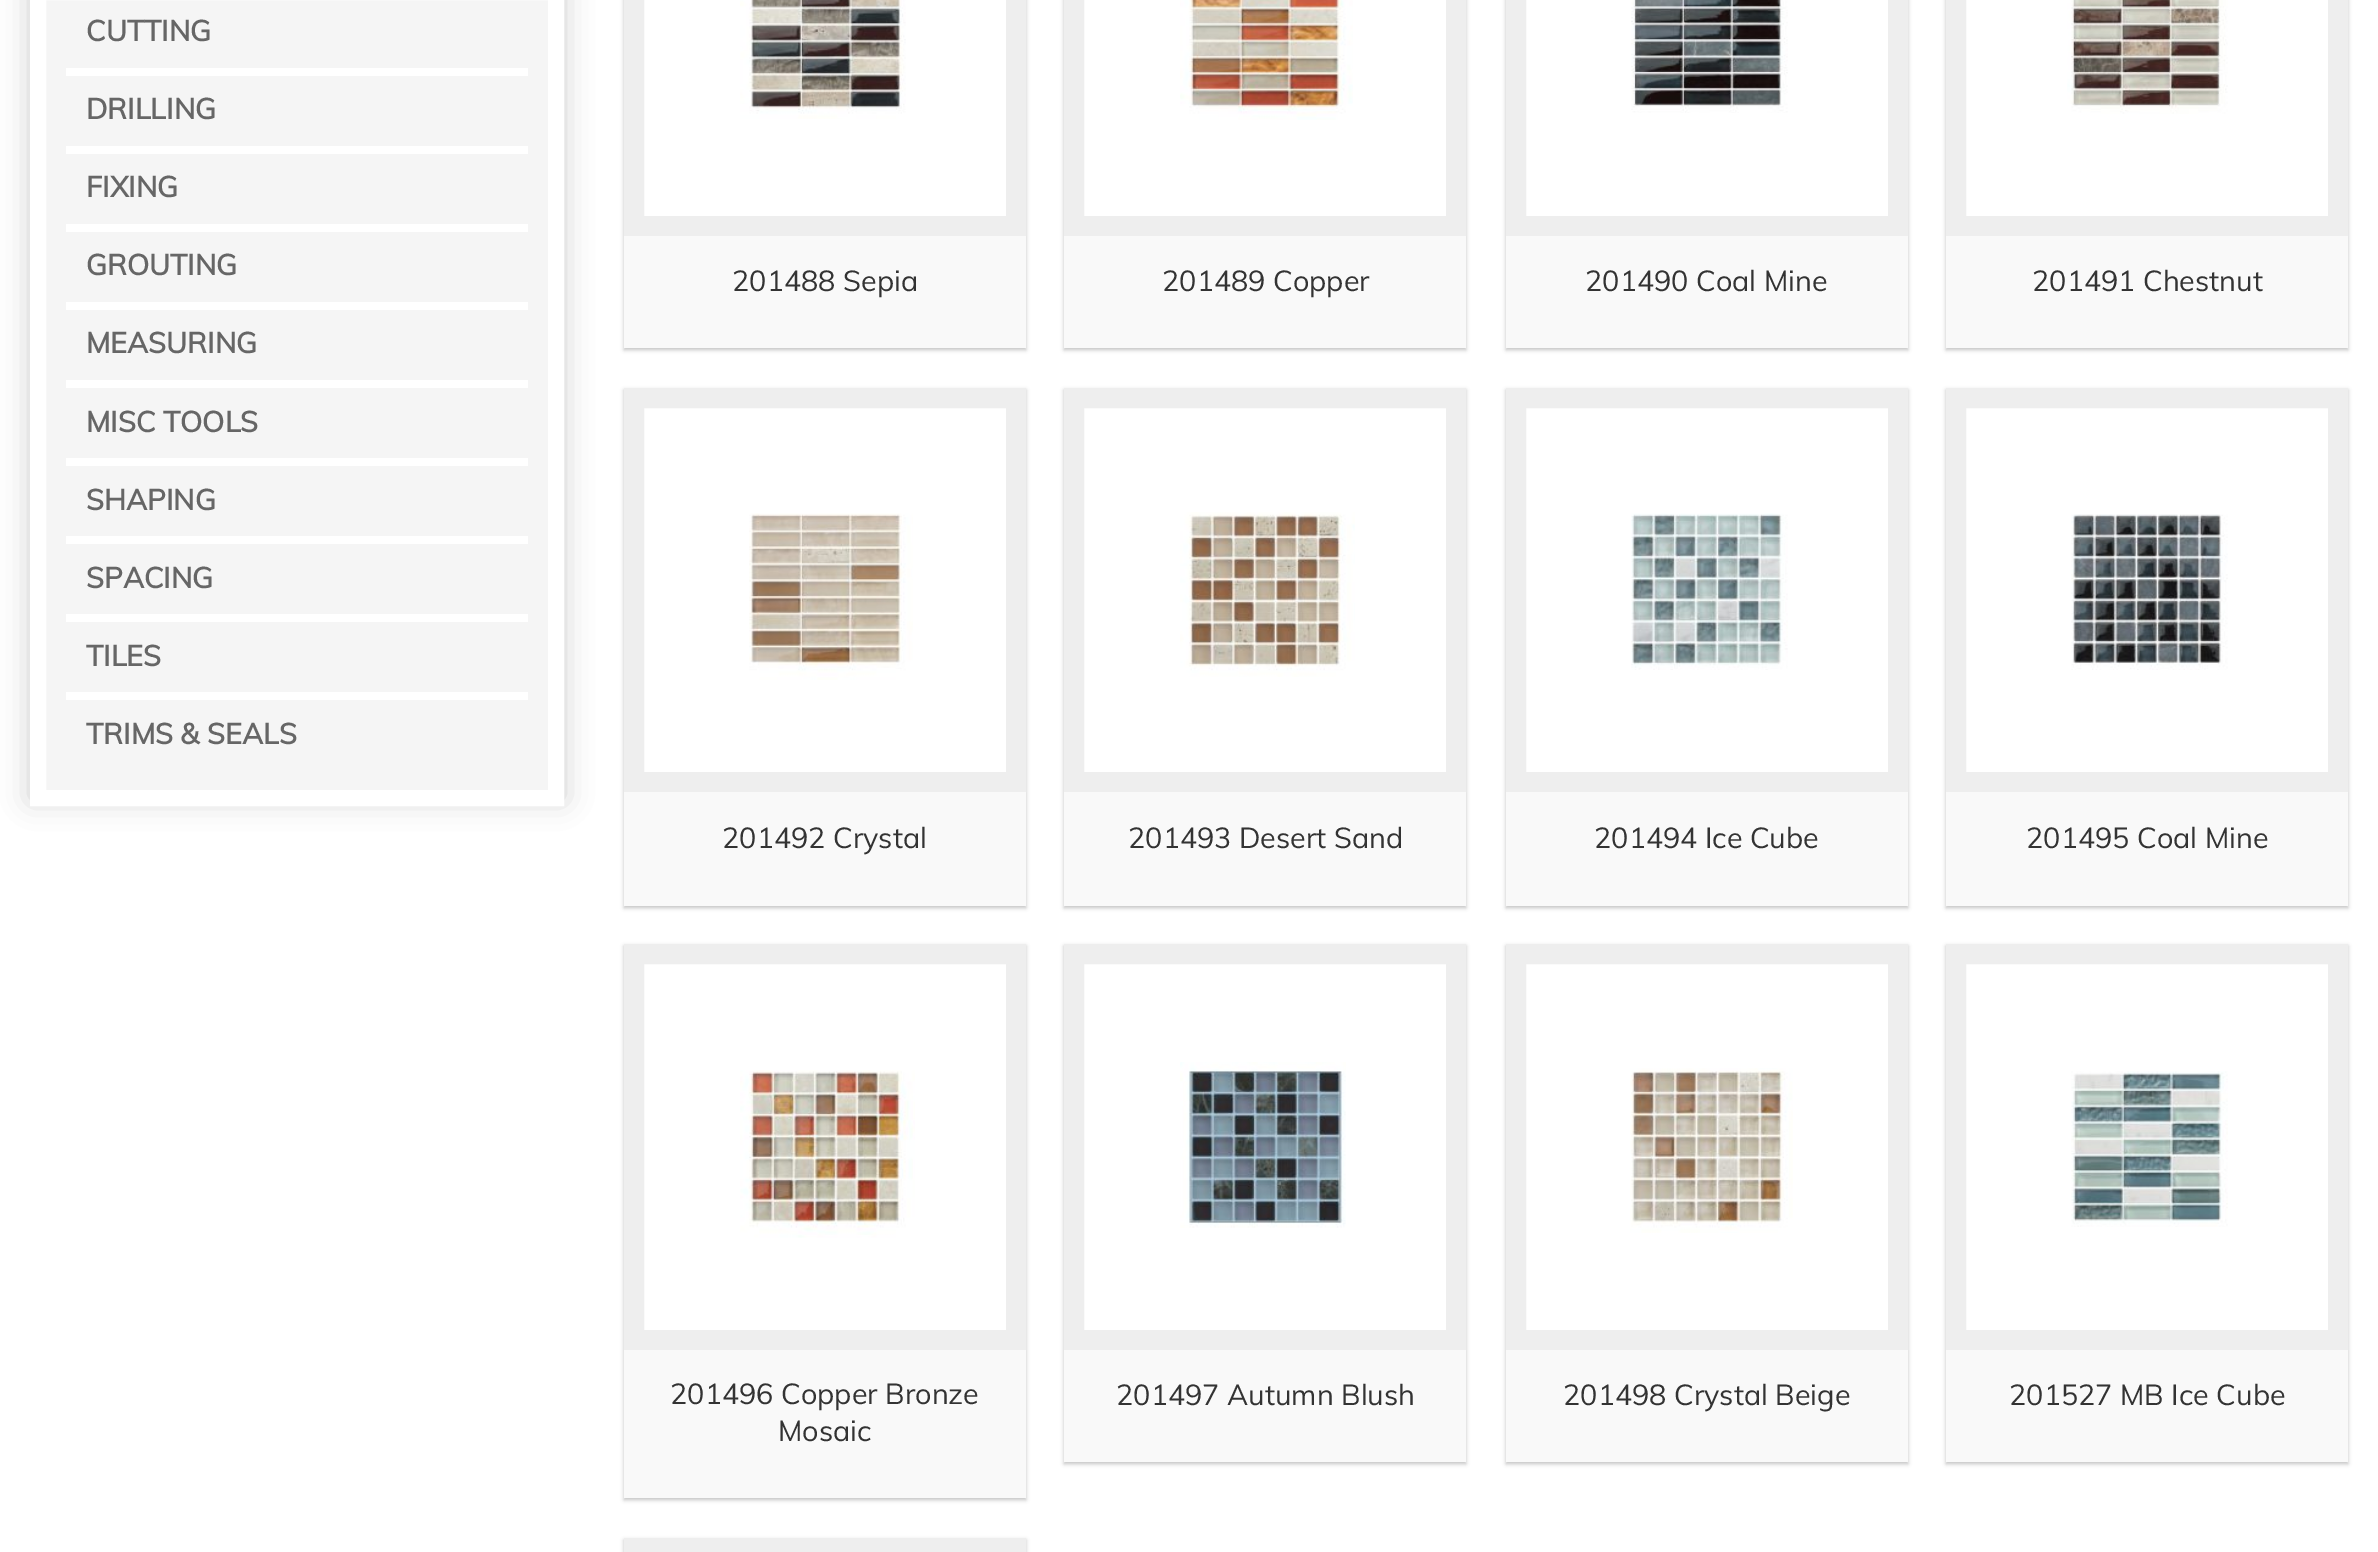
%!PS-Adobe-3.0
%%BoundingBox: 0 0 2378 1552
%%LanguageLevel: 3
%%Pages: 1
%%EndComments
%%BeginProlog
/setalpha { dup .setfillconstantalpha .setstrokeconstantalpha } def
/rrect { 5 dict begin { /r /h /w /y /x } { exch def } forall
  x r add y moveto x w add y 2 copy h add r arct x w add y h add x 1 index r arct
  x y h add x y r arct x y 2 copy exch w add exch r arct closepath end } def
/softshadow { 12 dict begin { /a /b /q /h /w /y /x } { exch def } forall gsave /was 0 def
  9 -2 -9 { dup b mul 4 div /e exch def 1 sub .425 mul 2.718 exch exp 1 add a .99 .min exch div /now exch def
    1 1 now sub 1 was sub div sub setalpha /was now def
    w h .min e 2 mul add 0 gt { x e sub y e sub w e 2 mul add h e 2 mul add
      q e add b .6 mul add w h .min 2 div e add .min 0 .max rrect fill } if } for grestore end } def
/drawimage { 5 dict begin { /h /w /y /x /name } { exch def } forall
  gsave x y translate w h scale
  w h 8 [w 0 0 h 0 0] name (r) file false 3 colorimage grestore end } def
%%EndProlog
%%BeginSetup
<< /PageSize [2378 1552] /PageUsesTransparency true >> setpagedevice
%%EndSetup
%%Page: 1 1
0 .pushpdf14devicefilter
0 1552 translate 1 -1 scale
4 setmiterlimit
1 setgray
0 0 2378 1552 rectfill
0.8 setgray
30 -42 534 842 0 14 1 softshadow
0.961 setgray
newpath 38 -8 moveto 556 -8 lineto 556 798 lineto 38 798 lineto closepath gsave fill grestore
1 setgray
16 setlinewidth
stroke
66 68 462 8 rectfill
66 146 462 8 rectfill
66 224 462 8 rectfill
66 302 462 8 rectfill
66 380 462 8 rectfill
66 458 462 8 rectfill
66 536 462 8 rectfill
66 614 462 8 rectfill
66 692 462 8 rectfill
gsave
newpath 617 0 moveto 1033 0 lineto 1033 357 lineto 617 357 lineto closepath 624 -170 moveto 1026 -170 lineto 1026 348 lineto 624 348 lineto closepath eoclip newpath
0 setgray
624 -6 402 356 0 2 0.24 softshadow
grestore
0.933 setgray
20 setlinewidth
634 -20 382 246 rectstroke
(images/1.raw) 740 0 166 119 drawimage
0.976 setgray
624 236 402 112 rectfill
gsave
newpath 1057 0 moveto 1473 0 lineto 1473 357 lineto 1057 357 lineto closepath 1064 -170 moveto 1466 -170 lineto 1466 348 lineto 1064 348 lineto closepath eoclip newpath
0 setgray
1064 -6 402 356 0 2 0.24 softshadow
grestore
0.933 setgray
1074 -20 382 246 rectstroke
(images/2.raw) 1180 0 173 120 drawimage
0.976 setgray
1064 236 402 112 rectfill
gsave
newpath 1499 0 moveto 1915 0 lineto 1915 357 lineto 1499 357 lineto closepath 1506 -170 moveto 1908 -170 lineto 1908 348 lineto 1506 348 lineto closepath eoclip newpath
0 setgray
1506 -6 402 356 0 2 0.24 softshadow
grestore
0.933 setgray
1516 -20 382 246 rectstroke
(images/3.raw) 1631 0 157 113 drawimage
0.976 setgray
1506 236 402 112 rectfill
gsave
newpath 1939 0 moveto 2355 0 lineto 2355 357 lineto 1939 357 lineto closepath 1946 -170 moveto 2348 -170 lineto 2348 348 lineto 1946 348 lineto closepath eoclip newpath
0 setgray
1946 -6 402 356 0 2 0.24 softshadow
grestore
0.933 setgray
1956 -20 382 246 rectstroke
(images/4.raw) 2067 0 161 114 drawimage
0.976 setgray
1946 236 402 112 rectfill
gsave
newpath 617 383 moveto 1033 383 lineto 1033 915 lineto 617 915 lineto closepath 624 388 moveto 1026 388 lineto 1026 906 lineto 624 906 lineto closepath eoclip newpath
0 setgray
624 390 402 518 0 2 0.24 softshadow
grestore
0.933 setgray
634 398 382 384 rectstroke
(images/5.raw) 749 513 164 167 drawimage
0.976 setgray
624 792 402 114 rectfill
gsave
newpath 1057 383 moveto 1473 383 lineto 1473 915 lineto 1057 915 lineto closepath 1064 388 moveto 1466 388 lineto 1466 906 lineto 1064 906 lineto closepath eoclip newpath
0 setgray
1064 390 402 518 0 2 0.24 softshadow
grestore
0.933 setgray
1074 398 382 384 rectstroke
(images/6.raw) 1180 512 175 165 drawimage
0.976 setgray
1064 792 402 114 rectfill
gsave
newpath 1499 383 moveto 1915 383 lineto 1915 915 lineto 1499 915 lineto closepath 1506 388 moveto 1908 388 lineto 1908 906 lineto 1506 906 lineto closepath eoclip newpath
0 setgray
1506 390 402 518 0 2 0.24 softshadow
grestore
0.933 setgray
1516 398 382 384 rectstroke
(images/7.raw) 1631 513 157 157 drawimage
0.976 setgray
1506 792 402 114 rectfill
gsave
newpath 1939 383 moveto 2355 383 lineto 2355 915 lineto 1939 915 lineto closepath 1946 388 moveto 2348 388 lineto 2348 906 lineto 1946 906 lineto closepath eoclip newpath
0 setgray
1946 390 402 518 0 2 0.24 softshadow
grestore
0.933 setgray
1956 398 382 384 rectstroke
(images/8.raw) 2071 514 157 156 drawimage
0.976 setgray
1946 792 402 114 rectfill
gsave
newpath 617 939 moveto 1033 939 lineto 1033 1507 lineto 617 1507 lineto closepath 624 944 moveto 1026 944 lineto 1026 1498 lineto 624 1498 lineto closepath eoclip newpath
0 setgray
624 946 402 554 0 2 0.24 softshadow
grestore
0.933 setgray
634 954 382 386 rectstroke
(images/9.raw) 740 1070 175 168 drawimage
0.976 setgray
624 1350 402 148 rectfill
gsave
newpath 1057 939 moveto 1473 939 lineto 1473 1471 lineto 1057 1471 lineto closepath 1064 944 moveto 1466 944 lineto 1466 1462 lineto 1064 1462 lineto closepath eoclip newpath
0 setgray
1064 946 402 518 0 2 0.24 softshadow
grestore
0.933 setgray
1074 954 382 386 rectstroke
(images/10.raw) 1180 1062 166 166 drawimage
0.976 setgray
1064 1350 402 112 rectfill
gsave
newpath 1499 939 moveto 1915 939 lineto 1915 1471 lineto 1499 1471 lineto closepath 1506 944 moveto 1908 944 lineto 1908 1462 lineto 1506 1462 lineto closepath eoclip newpath
0 setgray
1506 946 402 518 0 2 0.24 softshadow
grestore
0.933 setgray
1516 954 382 386 rectstroke
(images/11.raw) 1630 1068 163 165 drawimage
0.976 setgray
1506 1350 402 112 rectfill
gsave
newpath 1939 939 moveto 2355 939 lineto 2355 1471 lineto 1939 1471 lineto closepath 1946 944 moveto 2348 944 lineto 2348 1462 lineto 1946 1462 lineto closepath eoclip newpath
0 setgray
1946 946 402 518 0 2 0.24 softshadow
grestore
0.933 setgray
1956 954 382 386 rectstroke
(images/12.raw) 2071 1071 157 156 drawimage
0.976 setgray
1946 1350 402 112 rectfill
gsave
newpath 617 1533 moveto 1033 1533 lineto 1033 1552 lineto 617 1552 lineto closepath 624 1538 moveto 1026 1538 lineto 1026 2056 lineto 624 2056 lineto closepath eoclip newpath
0 setgray
624 1540 402 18 0 2 0.24 softshadow
grestore
gsave
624 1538 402 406 rectclip
0.8 setgray
636 1550 378 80 0 26 1 softshadow
grestore
0.933 setgray
634 1548 382 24 rectstroke
/Muli-Bold [28.75 0 0 -28.75 0 0] selectfont
0.4 setgray
86 41 moveto (CUTTING) show
86 119 moveto (DRILLING) show
86 197 moveto (FIXING) show
86 275 moveto (GROUTING) show
86 353 moveto (MEASURING) show
86 432 moveto (MISC TOOLS) show
86 510 moveto (SHAPING) show
86 588 moveto (SPACING) show
86 666 moveto (TILES) show
86 744 moveto (TRIMS & SEALS) show
/Muli-Regular [28.75 0 0 -28.75 0 0] selectfont
0.2 setgray
732 291 moveto (201488 Sepia) show
1162 291 moveto (201489 Copper) show
1585 291 moveto (201490 Coal Mine) show
2032 291 moveto (201491 Chestnut) show
722 848 moveto (201492 Crystal) show
1128 848 moveto (201493 Desert Sand) show
1594 848 moveto (201494 Ice Cube) show
2026 848 moveto (201495 Coal Mine) show
670 1404 moveto (201496 Copper Bronze) show
778 1441 moveto (Mosaic) show
1116 1405 moveto (201497 Autumn Blush) show
1563 1405 moveto (201498 Crystal Beige) show
2009 1405 moveto (201527 MB Ice Cube) show
.poppdf14devicefilter showpage
%%EOF
